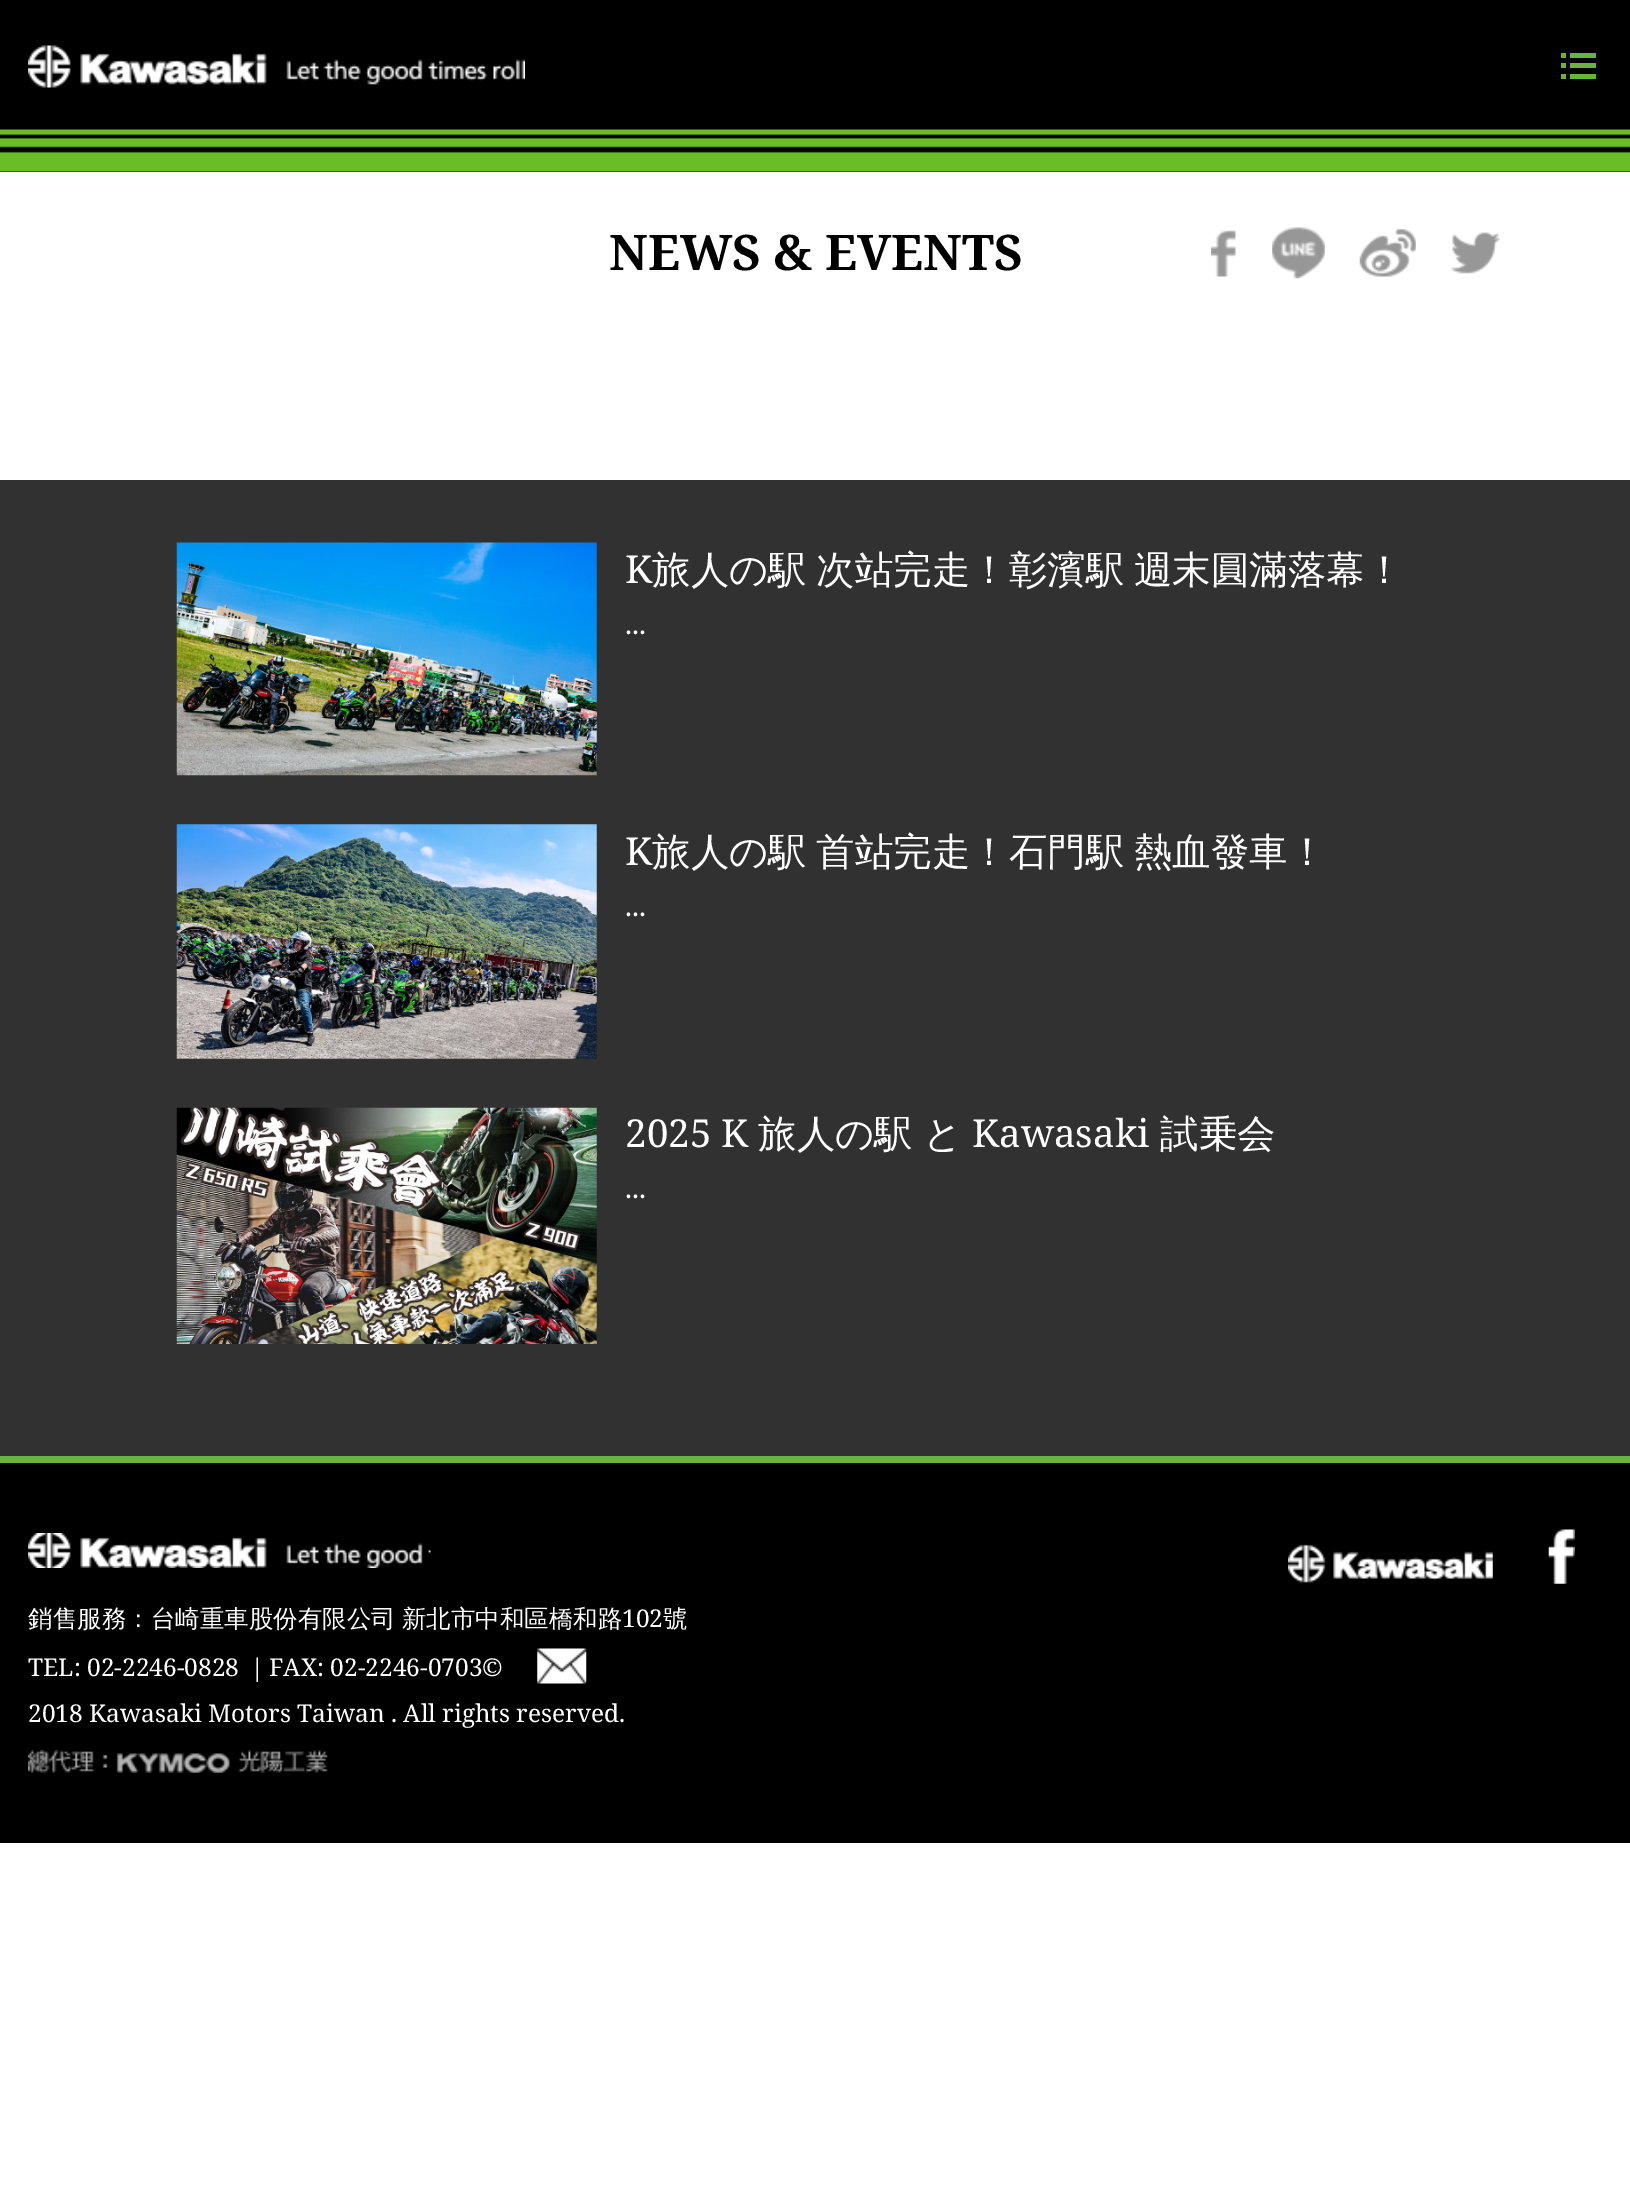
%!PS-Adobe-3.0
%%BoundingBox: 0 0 1630 2209
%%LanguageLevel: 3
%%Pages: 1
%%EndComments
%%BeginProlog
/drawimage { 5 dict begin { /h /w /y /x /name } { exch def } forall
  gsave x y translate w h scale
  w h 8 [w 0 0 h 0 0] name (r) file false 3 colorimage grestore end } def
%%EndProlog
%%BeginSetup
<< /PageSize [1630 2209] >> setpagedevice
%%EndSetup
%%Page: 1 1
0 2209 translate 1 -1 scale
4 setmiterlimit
1 setgray
0 0 1630 2209 rectfill
0 setgray
0 0 1630 172 rectfill
(images/1.raw) 28 45 497 43 drawimage
0.416 0.706 0.227 setrgbcolor
1561 63 5 5 rectfill
1570 63 26 5 rectfill
1561 53 5 5 rectfill
1570 53 26 5 rectfill
1561 74 5 5 rectfill
1570 74 26 5 rectfill
(images/2.raw) 0 129 1630 43 drawimage
(images/3.raw) 1211 230 25 47 drawimage
(images/4.raw) 1272 227 53 52 drawimage
(images/5.raw) 1359 228 57 49 drawimage
(images/6.raw) 1450 232 50 42 drawimage
0.192 setgray
0 480 1630 976 rectfill
(images/7.raw) 176 542 421 234 drawimage
(images/8.raw) 176 824 421 235 drawimage
(images/9.raw) 176 1107 421 237 drawimage
0 setgray
0 1463 1630 380 rectfill
0.416 0.706 0.227 setrgbcolor
0 1456 1630 7 rectfill
(images/10.raw) 1288 1544 205 39 drawimage
(images/11.raw) 1548 1529 27 55 drawimage
(images/12.raw) 28 1533 403 35 drawimage
(images/13.raw) 537 1648 50 36 drawimage
(images/14.raw) 28 1750 300 23 drawimage
/NotoSerif-Bold [49 0 0 -49 0 0] selectfont
0 setgray
609 270 moveto (NEWS & EVENTS) show
/NotoSerif-Regular [38.5 0 0 -38.5 0 0] selectfont
1 setgray
625 583 moveto (K) show
/WenQuanYiZenHei-Medium [38.5 0 0 -38.5 0 0] selectfont
652 583 moveto -2 0 32 (旅人の駅 次站完走！彰濱駅 週末圓滿落幕！) widthshow
/NotoSerif-Regular [28 0 0 -28 0 0] selectfont
625 634 moveto (...) show
/NotoSerif-Regular [38.5 0 0 -38.5 0 0] selectfont
625 865 moveto (K) show
/WenQuanYiZenHei-Medium [38.5 0 0 -38.5 0 0] selectfont
652 865 moveto -2 0 32 (旅人の駅 首站完走！石門駅 熱血發車！) widthshow
/NotoSerif-Regular [28 0 0 -28 0 0] selectfont
625 916 moveto (...) show
/NotoSerif-Regular [38.5 0 0 -38.5 0 0] selectfont
625 1147 moveto (2025 K) show
/WenQuanYiZenHei-Medium [38.5 0 0 -38.5 0 0] selectfont
758 1147 moveto (旅人の駅) show
923 1147 moveto (と) show
/NotoSerif-Regular [38.5 0 0 -38.5 0 0] selectfont
972 1147 moveto (Kawasaki) show
/WenQuanYiZenHei-Medium [38.5 0 0 -38.5 0 0] selectfont
1160 1147 moveto (試乗会) show
/NotoSerif-Regular [28 0 0 -28 0 0] selectfont
625 1198 moveto (...) show
/WenQuanYiZenHei-Medium [24.5 0 0 -24.5 0 0] selectfont
28 1627 moveto -1 0 32 (銷售服務：台崎重車股份有限公司 新北市中和區橋和路) widthshow
/NotoSerif-Regular [24.5 0 0 -24.5 0 0] selectfont
622 1627 moveto (102) show
/WenQuanYiZenHei-Medium [24.5 0 0 -24.5 0 0] selectfont
663 1627 moveto (號) show
/NotoSerif-Regular [24.5 0 0 -24.5 0 0] selectfont
28 1676 moveto (TEL: 02-2246-0828) show
/WenQuanYiZenHei-Medium [24.5 0 0 -24.5 0 0] selectfont
245 1676 moveto (｜) show
/NotoSerif-Regular [24.5 0 0 -24.5 0 0] selectfont
269 1676 moveto (FAX: 02-2246-0703©) show
28 1722 moveto (2018 Kawasaki Motors Taiwan . All rights reserved.) show
showpage
%%EOF
